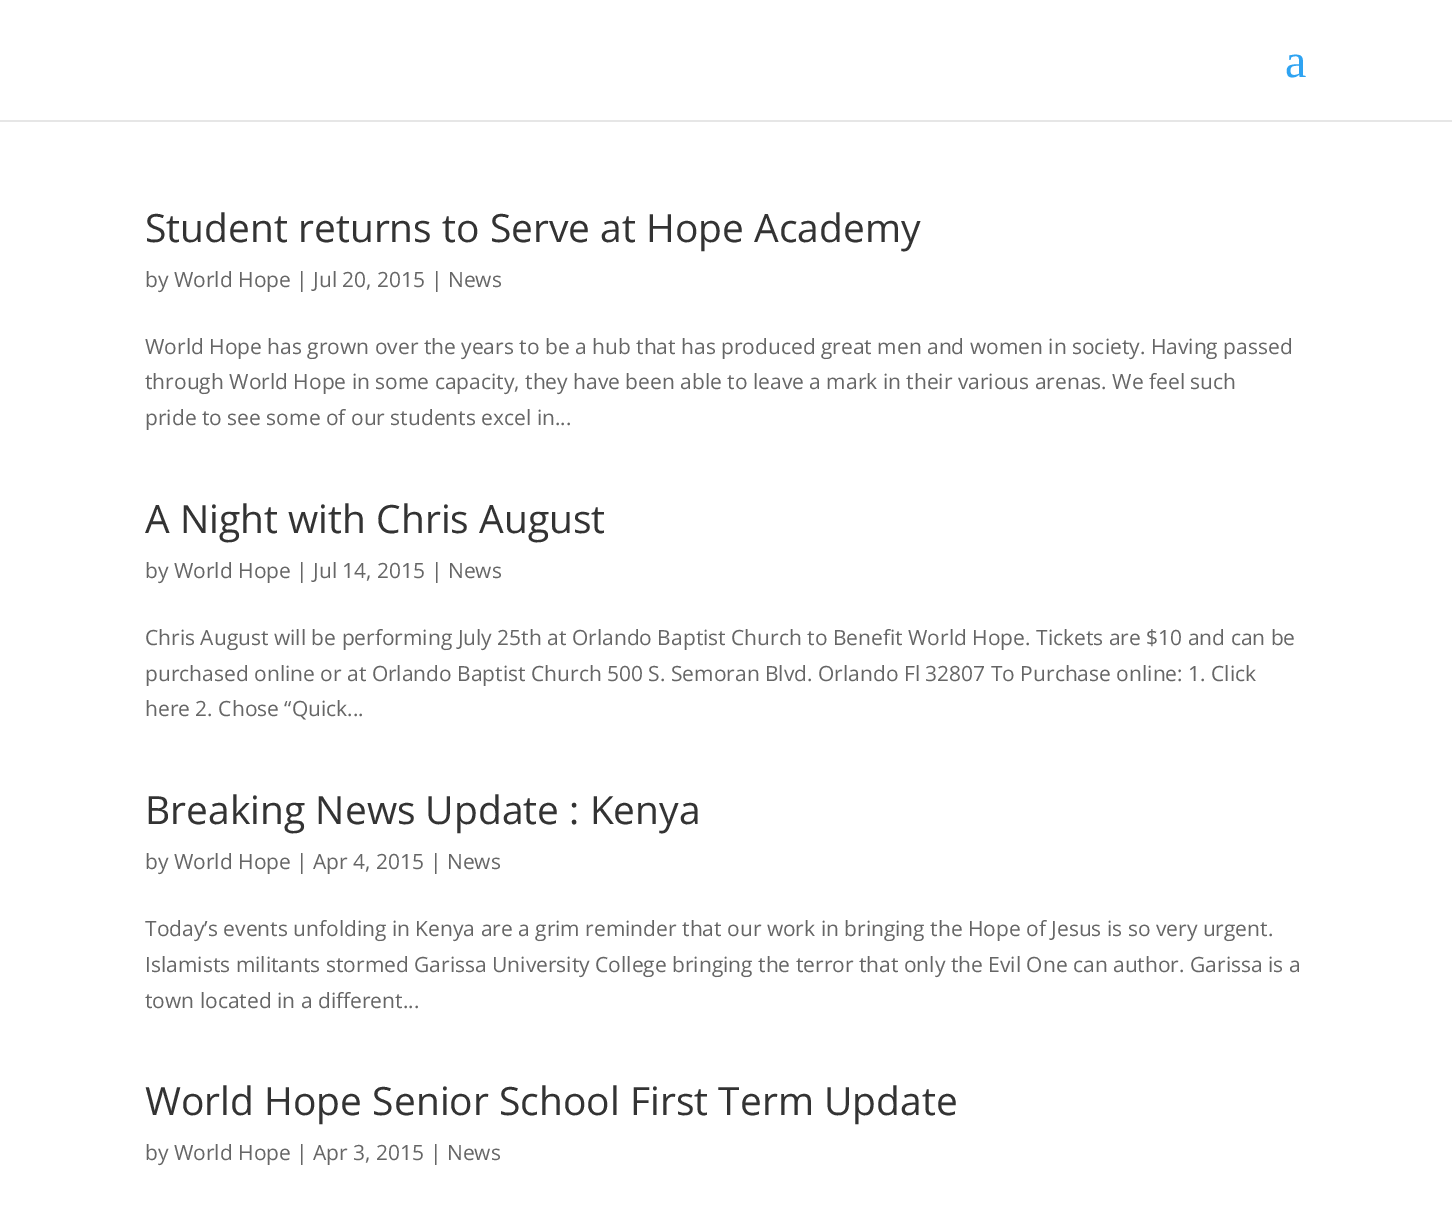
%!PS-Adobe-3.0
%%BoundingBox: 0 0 1452 1208
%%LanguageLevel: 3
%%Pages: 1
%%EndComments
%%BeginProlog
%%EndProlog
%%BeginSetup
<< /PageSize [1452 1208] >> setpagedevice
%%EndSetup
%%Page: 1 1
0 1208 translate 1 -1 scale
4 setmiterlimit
1 setgray
0 0 1452 1208 rectfill
0.902 setgray
0 120 1452 2 rectfill
/LiberationSerif-Regular [48 0 0 -48 0 0] selectfont
0.18 0.639 0.949 setrgbcolor
1285 77 moveto (a) show
/OpenSans-Regular [39 0 0 -39 0 0] selectfont
0.2 setgray
145 242 moveto (Student returns to Serve at Hope Academy) show
/OpenSans-Regular [21 0 0 -21 0 0] selectfont
0.4 setgray
145 287 moveto (by World Hope | Jul 20, 2015 | News) show
145 354 moveto (World Hope has grown over the years to be a hub that has produced great men and women in society. Having passed) show
145 389 moveto (through World Hope in some capacity, they have been able to leave a mark in their various arenas. We feel such) show
145 425 moveto (pride to see some of our students excel in...) show
/OpenSans-Regular [39 0 0 -39 0 0] selectfont
0.2 setgray
145 533 moveto (A Night with Chris August) show
/OpenSans-Regular [21 0 0 -21 0 0] selectfont
0.4 setgray
145 578 moveto (by World Hope | Jul 14, 2015 | News) show
145 645 moveto (Chris August will be performing July 25th at Orlando Baptist Church to Benefit World Hope. Tickets are $10 and can be) show
145 681 moveto (purchased online or at Orlando Baptist Church 500 S. Semoran Blvd. Orlando Fl 32807 To Purchase online: 1. Click) show
145 716 moveto (here 2. Chose “Quick...) show
/OpenSans-Regular [39 0 0 -39 0 0] selectfont
0.2 setgray
145 824 moveto (Breaking News Update : Kenya) show
/OpenSans-Regular [21 0 0 -21 0 0] selectfont
0.4 setgray
145 869 moveto (by World Hope | Apr 4, 2015 | News) show
145 936 moveto (Today’s events unfolding in Kenya are a grim reminder that our work in bringing the Hope of Jesus is so very urgent.) show
145 972 moveto (Islamists militants stormed Garissa University College bringing the terror that only the Evil One can author. Garissa is a) show
145 1008 moveto (town located in a different...) show
/OpenSans-Regular [39 0 0 -39 0 0] selectfont
0.2 setgray
145 1115 moveto (World Hope Senior School First Term Update) show
/OpenSans-Regular [21 0 0 -21 0 0] selectfont
0.4 setgray
145 1160 moveto (by World Hope | Apr 3, 2015 | News) show
showpage
%%EOF
